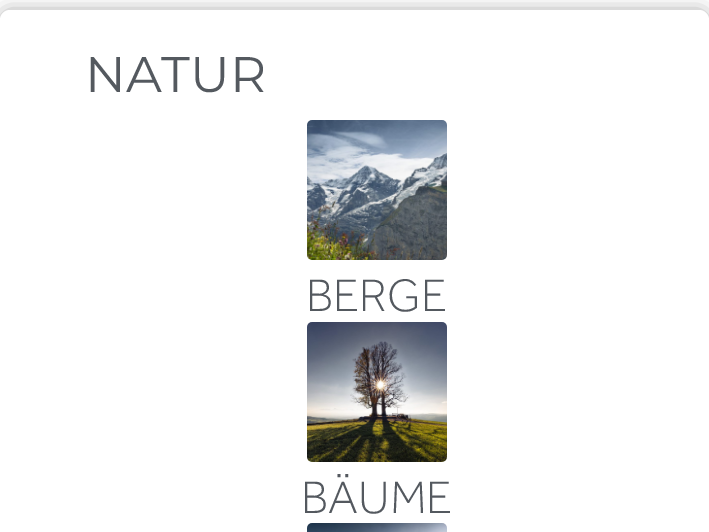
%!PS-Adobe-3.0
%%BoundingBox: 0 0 709 532
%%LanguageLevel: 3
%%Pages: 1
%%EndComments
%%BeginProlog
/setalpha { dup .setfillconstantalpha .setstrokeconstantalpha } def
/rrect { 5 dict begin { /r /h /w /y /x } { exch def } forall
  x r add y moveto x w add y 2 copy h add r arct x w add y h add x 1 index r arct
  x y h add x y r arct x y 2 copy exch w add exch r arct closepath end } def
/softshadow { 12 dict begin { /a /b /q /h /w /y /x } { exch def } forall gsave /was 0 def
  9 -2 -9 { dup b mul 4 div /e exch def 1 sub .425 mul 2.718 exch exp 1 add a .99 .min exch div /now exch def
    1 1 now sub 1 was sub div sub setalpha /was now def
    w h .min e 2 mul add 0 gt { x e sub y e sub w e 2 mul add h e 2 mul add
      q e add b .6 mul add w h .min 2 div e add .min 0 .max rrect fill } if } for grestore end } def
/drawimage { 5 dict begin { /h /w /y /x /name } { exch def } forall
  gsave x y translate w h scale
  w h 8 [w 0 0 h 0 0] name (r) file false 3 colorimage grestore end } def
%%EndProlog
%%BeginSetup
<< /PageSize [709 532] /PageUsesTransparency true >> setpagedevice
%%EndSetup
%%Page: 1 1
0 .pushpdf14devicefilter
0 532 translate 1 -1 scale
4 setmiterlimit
1 setgray
0 0 709 532 rectfill
0 setgray
-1 9 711 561 11 9 0.29 softshadow
1 setgray
0 10 709 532 10 rrect fill
(images/1.raw) 307 120 140 140 drawimage
(images/2.raw) 307 322 140 140 drawimage
(images/3.raw) 307 523 140 9 drawimage
/Montserrat-Regular [50 0 0 -50 0 0] selectfont
0.329 0.349 0.373 setrgbcolor
85 92 moveto (NATUR) show
/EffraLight-Light [47 0 0 -47 0 0] selectfont
306 311 moveto (BERGE) show
301 513 moveto (BÄUME) show
.poppdf14devicefilter showpage
%%EOF
